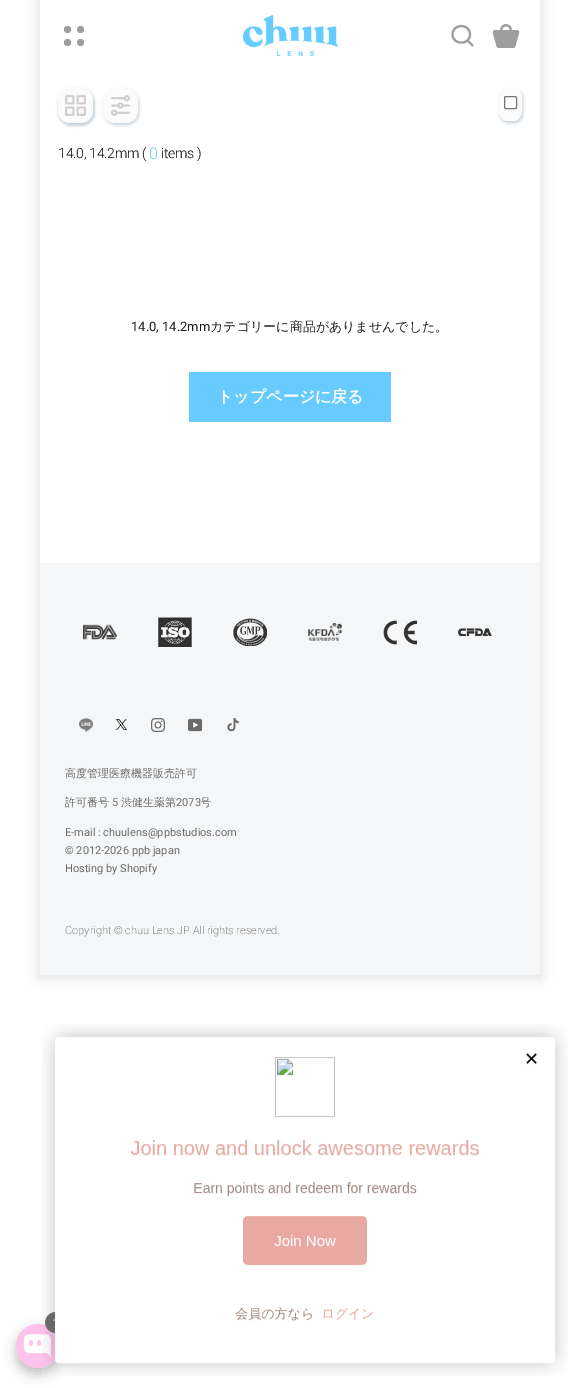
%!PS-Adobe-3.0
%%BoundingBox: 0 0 580 1388
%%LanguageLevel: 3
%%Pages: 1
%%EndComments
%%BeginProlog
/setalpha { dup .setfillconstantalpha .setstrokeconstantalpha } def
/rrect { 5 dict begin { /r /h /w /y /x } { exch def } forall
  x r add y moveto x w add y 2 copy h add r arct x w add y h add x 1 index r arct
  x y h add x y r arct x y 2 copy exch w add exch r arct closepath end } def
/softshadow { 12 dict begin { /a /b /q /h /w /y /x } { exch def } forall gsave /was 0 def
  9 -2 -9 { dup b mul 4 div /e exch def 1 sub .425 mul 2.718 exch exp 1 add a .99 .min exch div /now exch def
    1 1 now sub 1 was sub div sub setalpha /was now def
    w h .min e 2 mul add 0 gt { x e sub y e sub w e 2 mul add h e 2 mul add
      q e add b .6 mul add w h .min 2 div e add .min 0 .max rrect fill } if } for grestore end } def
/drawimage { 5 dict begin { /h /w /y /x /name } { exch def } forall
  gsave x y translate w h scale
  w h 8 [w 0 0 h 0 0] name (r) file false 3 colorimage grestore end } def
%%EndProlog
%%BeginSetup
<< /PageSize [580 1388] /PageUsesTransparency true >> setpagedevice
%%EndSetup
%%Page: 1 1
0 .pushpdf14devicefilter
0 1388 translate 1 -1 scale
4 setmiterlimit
1 setgray
0 0 580 1388 rectfill
gsave
newpath 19 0 moveto 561 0 lineto 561 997 lineto 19 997 lineto closepath 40 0 moveto 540 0 lineto 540 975 lineto 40 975 lineto closepath eoclip newpath
0.839 setgray
38 -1 504 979 0 6 0.75 softshadow
grestore
0.62 setgray
newpath 67.5 29.5 3.5 0 360 arc closepath fill
newpath 80.5 29.5 3.5 0 360 arc closepath fill
newpath 67.5 42.5 3.5 0 360 arc closepath fill
newpath 80.5 42.5 3.5 0 360 arc closepath fill
(images/1.raw) 243 15 95 41 drawimage
2.1 setlinewidth
1 setlinecap
1 setlinejoin
newpath 452.5 34.5 moveto 452.5 23.5 469.5 23 470 34 curveto 470.5 45.5 452.5 45.5 452.5 34.5 curveto closepath 467.5 40.5 moveto 472.5 45.5 lineto stroke
(images/2.raw) 492 24 28 24 drawimage
0.776 0.827 0.855 setrgbcolor
59 90 35 35 12 1.5 1 softshadow
59 90 35 35 12 1.5 1 softshadow
0.984 setgray
58 88 35 35 12 rrect fill
(images/3.raw) 65 95 21 21 drawimage
0.776 0.827 0.855 setrgbcolor
104 90 35 35 12 1.5 1 softshadow
0.984 setgray
103 88 35 35 12 rrect fill
(images/4.raw) 111 95 19 21 drawimage
0.776 0.827 0.855 setrgbcolor
500 90 23 33 8 1.5 1 softshadow
0.984 setgray
newpath 507 88 moveto 514 88 lineto 518.5 88 522 93 522 99.5 curveto 522 109.5 lineto 522 116 518.5 121 514 121 curveto 507 121 lineto 502.5 121 499 116 499 109.5 curveto 499 99.5 lineto 499 93 502.5 88 507 88 curveto closepath fill
1 setgray
504.5 96.5 12 12 1.5 rrect gsave fill grestore
0.463 setgray
1 setlinewidth
0 setlinecap
0 setlinejoin
stroke
0.408 0.796 1 setrgbcolor
189 372 202 50 rectfill
0.961 0.965 0.969 setrgbcolor
40 563 500 412 rectfill
(images/5.raw) 83 624 34 16 drawimage
(images/6.raw) 158 617 34 30 drawimage
(images/7.raw) 233 618 34 28 drawimage
(images/8.raw) 308 623 34 18 drawimage
(images/9.raw) 383 620 34 25 drawimage
(images/10.raw) 458 628 34 8 drawimage
(images/11.raw) 79 718 14 14 drawimage
(images/12.raw) 116 719 11 11 drawimage
(images/13.raw) 151 718 14 14 drawimage
(images/14.raw) 188 718 14 14 drawimage
(images/15.raw) 227 718 12 14 drawimage
0 setgray
16 1330 44 44 22 6 0.25 softshadow
1 0.765 0.922 setrgbcolor
newpath 38 1346 22 0 360 arc closepath fill
(images/16.raw) 23 1334 28 24 drawimage
0.451 setgray
newpath 55.5 1322.5 10.5 0 360 arc closepath fill
(images/17.raw) 42 1024 526 352 drawimage
/Roboto-Light [14 0 0 -14 0 0] selectfont
0 setgray
58 158 moveto -0.25 0 (14.0, 14.2mm \() ashow
/Roboto-Light [16 0 0 -16 0 0] selectfont
0.42 0.773 0.961 setrgbcolor
149 159 moveto -0.25 0 (0) ashow
/Roboto-Light [14 0 0 -14 0 0] selectfont
0 setgray
161 158 moveto -0.25 0 (items \)) ashow
/Roboto-Regular [13 0 0 -13 0 0] selectfont
0.11 0.106 0.106 setrgbcolor
131 331 moveto (14.0, 14.2mm) show
/WenQuanYiZenHei-Medium [13 0 0 -13 0 0] selectfont
210 331 moveto (カテゴリーに商品がありませんでした。) show
/WenQuanYiZenHei-Bold [16 0 0 -16 0 0] selectfont
1 setgray
217 402 moveto (トップページに戻る) show
/WenQuanYiZenHei-Medium [11 0 0 -11 0 0] selectfont
0.416 setgray
65 777 moveto (高度管理医療機器販売許可) show
65 806 moveto (許可番号) show
/Roboto-Regular [11 0 0 -11 0 0] selectfont
112 806 moveto (5) show
/WenQuanYiZenHei-Medium [11 0 0 -11 0 0] selectfont
121 806 moveto (渋健生薬第) show
/Roboto-Regular [11 0 0 -11 0 0] selectfont
176 806 moveto (2073) show
/WenQuanYiZenHei-Medium [11 0 0 -11 0 0] selectfont
200 806 moveto (号) show
/Roboto-Regular [11 0 0 -11 0 0] selectfont
65 836 moveto (E-mail : chuulens@ppbstudios.com) show
65 854 moveto (© 2012-2026 ppb japan) show
65 872 moveto (Hosting by Shopify) show
/Roboto-ExtraLight [11 0 0 -11 0 0] selectfont
65 934 moveto (Copyright © chuu Lens JP All rights reserved.) show
.poppdf14devicefilter showpage
%%EOF
